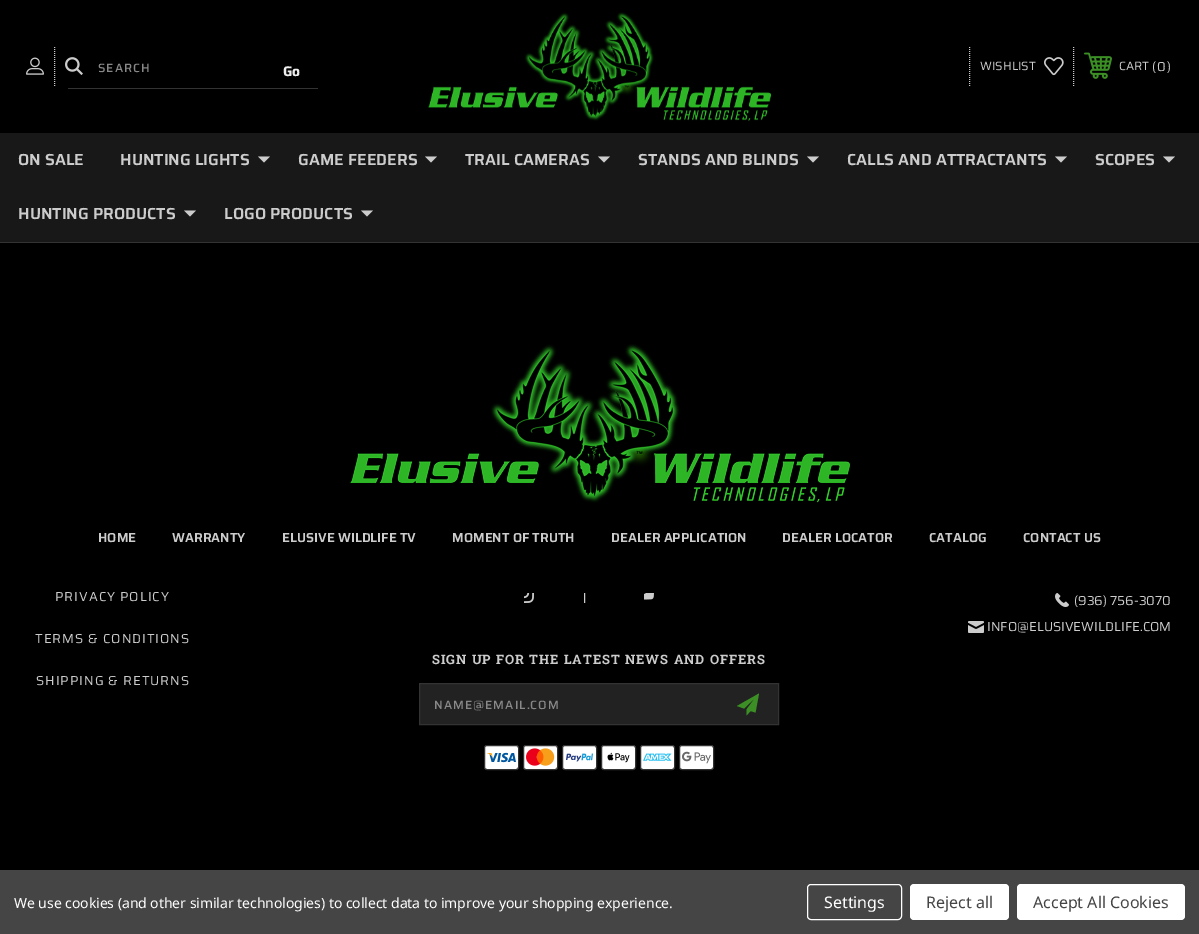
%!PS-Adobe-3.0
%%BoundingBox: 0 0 1199 934
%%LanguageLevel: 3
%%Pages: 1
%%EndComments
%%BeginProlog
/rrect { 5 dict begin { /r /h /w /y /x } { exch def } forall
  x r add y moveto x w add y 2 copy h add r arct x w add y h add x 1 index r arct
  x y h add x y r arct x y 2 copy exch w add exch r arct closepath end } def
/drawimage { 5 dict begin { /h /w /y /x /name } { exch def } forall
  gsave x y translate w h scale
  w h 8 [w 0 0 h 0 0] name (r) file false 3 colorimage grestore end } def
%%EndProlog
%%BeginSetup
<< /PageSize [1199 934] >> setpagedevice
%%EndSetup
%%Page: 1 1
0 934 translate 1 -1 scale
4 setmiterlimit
0 setgray
0 0 1199 934 rectfill
0.2 setgray
0 242 1199 1 rectfill
(images/1.raw) 26 57 18 18 drawimage
0.8 setgray
[1 1] 0 setdash
newpath 54.5 47 moveto 54.5 86 lineto stroke
(images/2.raw) 65 57 18 18 drawimage
0.2 setgray
68 88 250 1 rectfill
(images/3.raw) 428 12 343 109 drawimage
0.8 setgray
newpath 1073.5 47 moveto 1073.5 86 lineto stroke
newpath 969.5 47 moveto 969.5 86 lineto stroke
(images/4.raw) 1044 57 20 19 drawimage
(images/5.raw) 1084 52 28 27 drawimage
0.094 setgray
0 133 1199 109 rectfill
0.8 setgray
newpath 258 156.5 moveto 264 162.5 lineto 270 156.5 lineto closepath fill
newpath 425 156.5 moveto 431 162.5 lineto 437 156.5 lineto closepath fill
newpath 598 156.5 moveto 604 162.5 lineto 610 156.5 lineto closepath fill
newpath 807 156.5 moveto 813 162.5 lineto 819 156.5 lineto closepath fill
newpath 1055 156.5 moveto 1061 162.5 lineto 1067 156.5 lineto closepath fill
newpath 1163 156.5 moveto 1169 162.5 lineto 1175 156.5 lineto closepath fill
newpath 184 210.5 moveto 190 216.5 lineto 196 210.5 lineto closepath fill
newpath 361 210.5 moveto 367 216.5 lineto 373 210.5 lineto closepath fill
(images/6.raw) 350 344 500 159 drawimage
(images/7.raw) 1055 593 14 14 drawimage
(images/8.raw) 968 621 16 12 drawimage
(images/9.raw) 524 593 10 10 drawimage
(images/10.raw) 584 593 2 10 drawimage
(images/11.raw) 644 593 10 7 drawimage
0.133 setgray
newpath 419.5 683.5 moveto 778.5 683.5 lineto 778.5 724.5 lineto 419.5 724.5 lineto closepath gsave fill grestore
0.2 setgray
[] 0 setdash
stroke
0.231 0.561 0.141 setrgbcolor
newpath 759 693.5 moveto 737 706 lineto 744 708.5 lineto 755 698 lineto 746.5 709.5 lineto 746.5 715.5 lineto 750.5 711 lineto 755.5 712.5 lineto closepath fill
1 setgray
484.5 745.5 34 24 2.5 rrect gsave fill grestore
0.2 setgray
stroke
(images/12.raw) 487 752 29 11 drawimage
1 setgray
523.5 745.5 34 24 2.5 rrect gsave fill grestore
0.2 setgray
stroke
(images/13.raw) 526 748 29 18 drawimage
1 setgray
562.5 745.5 34 24 2.5 rrect gsave fill grestore
0.2 setgray
stroke
(images/14.raw) 566 753 27 9 drawimage
1 setgray
601.5 745.5 34 24 2.5 rrect gsave fill grestore
0.2 setgray
stroke
(images/15.raw) 607 752 23 11 drawimage
1 setgray
640.5 745.5 34 24 2.5 rrect gsave fill grestore
0.2 setgray
stroke
(images/16.raw) 643 753 29 8 drawimage
1 setgray
679.5 745.5 34 24 2.5 rrect gsave fill grestore
0.2 setgray
stroke
(images/17.raw) 682 751 29 13 drawimage
0.271 setgray
0 870 1199 64 rectfill
1 setgray
807.5 884.5 94 35 3.5 rrect stroke
910 884 99 36 4 rrect fill
1017 884 168 36 4 rrect fill
/Saira-Medium [12 0 0 -12 0 0] selectfont
0.533 setgray
98 72 moveto 1 0 (SEARCH) ashow
/Saira-Bold [14 0 0 -14 0 0] selectfont
0.933 setgray
283 76 moveto (Go) show
/Saira-Regular [12 0 0 -12 0 0] selectfont
0.8 setgray
980 70 moveto (WISHLIST) show
1119 70 moveto (CART) show
/Saira-Regular [13 0 0 -13 0 0] selectfont
1152 71 moveto (\() show
1157 71 moveto (0) show
1167 71 moveto (\)) show
/Saira-SemiBold [16 0 0 -16 0 0] selectfont
18 165 moveto (ON SALE) show
120 165 moveto (HUNTING LIGHTS) show
298 165 moveto (GAME FEEDERS) show
465 165 moveto (TRAIL CAMERAS) show
638 165 moveto (STANDS AND BLINDS) show
847 165 moveto (CALLS AND ATTRACTANTS) show
1095 165 moveto (SCOPES) show
18 219 moveto (HUNTING PRODUCTS) show
224 219 moveto (LOGO PRODUCTS) show
/Saira-SemiBold [13 0 0 -13 0 0] selectfont
98 542 moveto (HOME) show
172 542 moveto (WARRANTY) show
282 542 moveto (ELUSIVE WILDLIFE TV) show
452 542 moveto (MOMENT OF TRUTH) show
611 542 moveto (DEALER APPLICATION) show
782 542 moveto (DEALER LOCATOR) show
929 542 moveto (CATALOG) show
1023 542 moveto (CONTACT US) show
/Saira-Regular [13 0 0 -13 0 0] selectfont
55 601 moveto 1 0 (PRIVACY POLICY) ashow
35 643 moveto 1 0 (TERMS & CONDITIONS) ashow
36 685 moveto 1 0 (SHIPPING & RETURNS) ashow
1074 605 moveto (\(936\) 756-3070) show
987 631 moveto (INFO@ELUSIVEWILDLIFE.COM) show
/RobotoSlab-Bold [13 0 0 -13 0 0] selectfont
432 664 moveto 1 0 (SIGN UP FOR THE LATEST NEWS AND OFFERS) ashow
/Saira-Medium [12 0 0 -12 0 0] selectfont
0.533 setgray
434 709 moveto 1 0 (NAME@EMAIL.COM) ashow
/NotoSans-Regular [14 0 0 -14 0 0] selectfont
1 setgray
14 908 moveto -0.05 0 (We use cookies \(and other similar technologies\) to collect data to improve your shopping experience.) ashow
/NotoSans-Regular [16 0 0 -16 0 0] selectfont
824 908 moveto (Settings) show
0.271 setgray
926 908 moveto (Reject all) show
1033 908 moveto (Accept All Cookies) show
showpage
%%EOF
